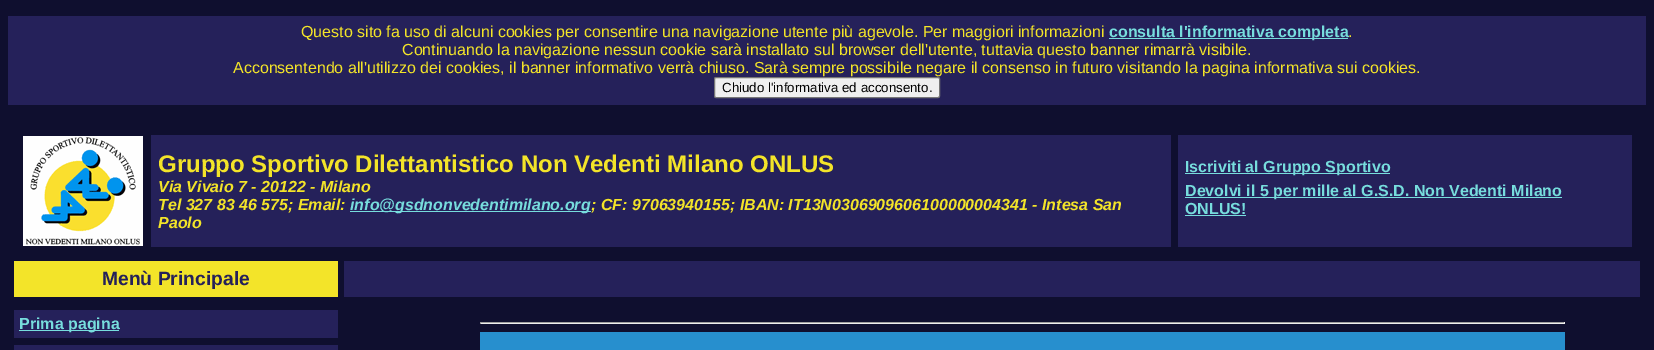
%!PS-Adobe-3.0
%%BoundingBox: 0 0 1654 350
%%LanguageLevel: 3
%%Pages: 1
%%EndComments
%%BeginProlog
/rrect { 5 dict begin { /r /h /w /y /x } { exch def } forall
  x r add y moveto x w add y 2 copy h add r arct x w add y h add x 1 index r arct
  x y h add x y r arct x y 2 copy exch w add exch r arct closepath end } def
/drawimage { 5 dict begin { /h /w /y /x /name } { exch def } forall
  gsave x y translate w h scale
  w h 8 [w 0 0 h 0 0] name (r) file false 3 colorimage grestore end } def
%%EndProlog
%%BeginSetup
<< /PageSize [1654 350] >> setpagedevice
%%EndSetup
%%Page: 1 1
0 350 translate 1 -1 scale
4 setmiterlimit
0.059 0.059 0.184 setrgbcolor
0 0 1654 350 rectfill
0.145 0.129 0.353 setrgbcolor
8 16 1638 89 rectfill
0.467 0.867 0.867 setrgbcolor
1109 38 239 1 rectfill
0.937 setgray
714.5 77.5 225 20 1.5 rrect gsave fill grestore
0.463 setgray
stroke
(images/1.raw) 23 136 120 110 drawimage
0.145 0.129 0.353 setrgbcolor
151 135 1020 112 rectfill
0.467 0.867 0.867 setrgbcolor
350 211 241 1 rectfill
0.145 0.129 0.353 setrgbcolor
1178 135 454 112 rectfill
0.467 0.867 0.867 setrgbcolor
1185 173 205 1 rectfill
1185 197 377 1 rectfill
1185 215 61 1 rectfill
0.953 0.894 0.161 setrgbcolor
14 261 324 36 rectfill
0.145 0.129 0.353 setrgbcolor
344 261 1296 36 rectfill
14 310 324 28 rectfill
0.467 0.867 0.867 setrgbcolor
19 330 100 1 rectfill
0.145 0.129 0.353 setrgbcolor
14 345 324 5 rectfill
0.624 setgray
480 322 1085 1 rectfill
0.933 setgray
1564 322 1 2 rectfill
480 323 1085 1 rectfill
0.624 setgray
480 322 1 2 rectfill
0.153 0.561 0.808 setrgbcolor
480 332 1085 18 rectfill
/LiberationSans-Regular [16 0 0 -16 0 0] selectfont
0.953 0.894 0.161 setrgbcolor
301 37 moveto (Questo sito fa uso di alcuni cookies per consentire una navigazione utente più agevole. Per maggiori informazioni) show
/LiberationSans-Bold [16 0 0 -16 0 0] selectfont
0.467 0.867 0.867 setrgbcolor
1109 37 moveto (consulta l'informativa completa) show
/LiberationSans-Regular [16 0 0 -16 0 0] selectfont
0.953 0.894 0.161 setrgbcolor
1348 37 moveto (.) show
402 55 moveto (Continuando la navigazione nessun cookie sarà installato sul browser dell'utente, tuttavia questo banner rimarrà visibile.) show
233 73 moveto (Acconsentendo all'utilizzo dei cookies, il banner informativo verrà chiuso. Sarà sempre possibile negare il consenso in futuro visitando la pagina informativa sui cookies.) show
/LiberationSans-Regular [13.3 0 0 -13.3 0 0] selectfont
0 setgray
722 92 moveto (Chiudo l'informativa ed acconsento.) show
/LiberationSans-Bold [24 0 0 -24 0 0] selectfont
0.953 0.894 0.161 setrgbcolor
158 172 moveto (Gruppo Sportivo Dilettantistico Non Vedenti Milano ONLUS) show
/LiberationSans-BoldItalic [16 0 0 -16 0 0] selectfont
158 192 moveto (Via Vivaio 7 - 20122 - Milano) show
158 210 moveto (Tel 327 83 46 575; Email:) show
0.467 0.867 0.867 setrgbcolor
350 210 moveto (info@gsdnonvedentimilano.org) show
0.953 0.894 0.161 setrgbcolor
591 210 moveto (; CF: 97063940155; IBAN: IT13N0306909606100000004341 - Intesa San) show
158 228 moveto (Paolo) show
/LiberationSans-Bold [16 0 0 -16 0 0] selectfont
0.467 0.867 0.867 setrgbcolor
1185 172 moveto (Iscriviti al Gruppo Sportivo) show
1185 196 moveto (Devolvi il 5 per mille al G.S.D. Non Vedenti Milano) show
1185 214 moveto (ONLUS!) show
/LiberationSans-Bold [19.25 0 0 -19.25 0 0] selectfont
0.145 0.129 0.353 setrgbcolor
102 285 moveto (Menù Principale) show
/LiberationSans-Bold [16 0 0 -16 0 0] selectfont
0.467 0.867 0.867 setrgbcolor
19 329 moveto (Prima pagina) show
showpage
%%EOF
